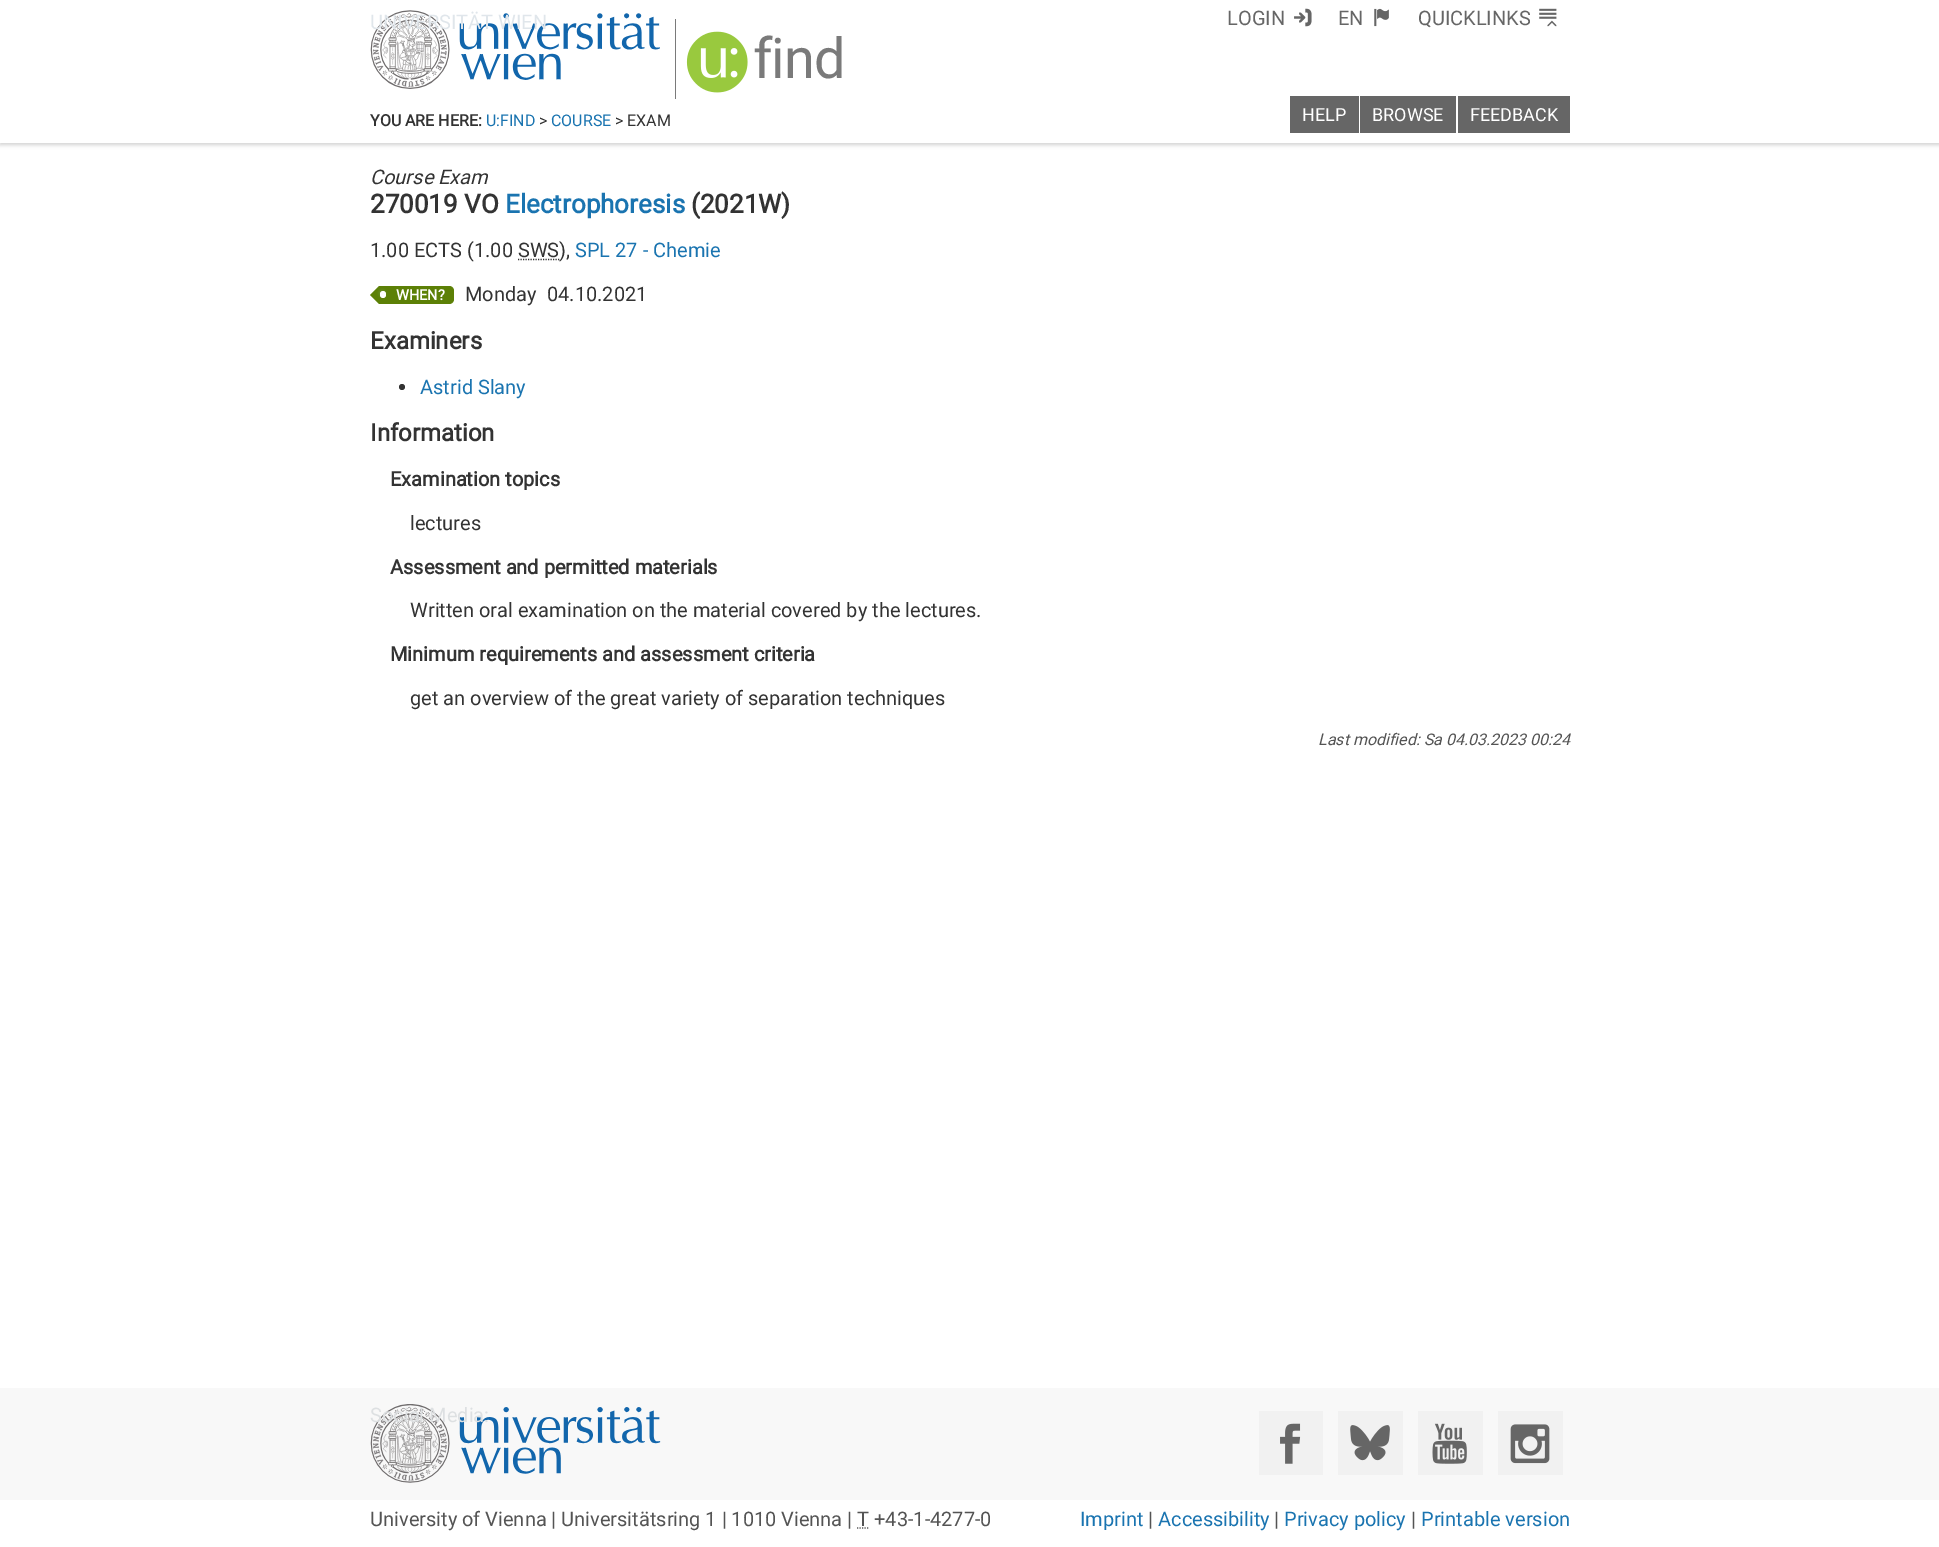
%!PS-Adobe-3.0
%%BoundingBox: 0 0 1939 1547
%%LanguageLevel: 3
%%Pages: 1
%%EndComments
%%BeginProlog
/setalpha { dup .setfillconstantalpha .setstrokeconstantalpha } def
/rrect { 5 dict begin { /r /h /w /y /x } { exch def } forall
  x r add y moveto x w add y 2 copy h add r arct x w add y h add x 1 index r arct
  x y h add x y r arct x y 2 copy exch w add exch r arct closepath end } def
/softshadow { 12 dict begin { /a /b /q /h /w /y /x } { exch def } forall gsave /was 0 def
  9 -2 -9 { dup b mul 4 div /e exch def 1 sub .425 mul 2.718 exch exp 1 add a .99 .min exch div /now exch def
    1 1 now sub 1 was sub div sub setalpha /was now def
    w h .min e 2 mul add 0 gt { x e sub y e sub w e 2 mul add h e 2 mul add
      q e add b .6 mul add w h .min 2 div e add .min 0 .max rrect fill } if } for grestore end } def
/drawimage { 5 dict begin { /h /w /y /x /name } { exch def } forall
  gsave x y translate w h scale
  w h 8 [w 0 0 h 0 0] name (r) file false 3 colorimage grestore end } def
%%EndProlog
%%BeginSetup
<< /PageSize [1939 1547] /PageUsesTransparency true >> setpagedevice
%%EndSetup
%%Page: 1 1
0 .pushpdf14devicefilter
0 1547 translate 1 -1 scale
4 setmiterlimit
1 setgray
0 0 1939 1547 rectfill
0 setgray
0 3 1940 142 0 2 0.18 softshadow
1 setgray
0 0 1939 143 rectfill
(images/1.raw) 370 10 290 79 drawimage
0.478 setgray
675 19 1 80 rectfill
(images/2.raw) 686 31 62 62 drawimage
(images/3.raw) 1294 8 18 19 drawimage
(images/4.raw) 1374 8 15 19 drawimage
(images/5.raw) 1539 8 18 19 drawimage
0.4 setgray
1290 96 69 37 rectfill
1360 96 96 37 rectfill
1458 96 112 37 rectfill
0.2 setgray
1.2 setlinewidth
[1.25 1.25] 0 setdash
newpath 518 259.5 moveto 559.5 259.5 lineto stroke
0.361 0.502 0.024 setrgbcolor
newpath 379 286 moveto 379 304 lineto 370 295 lineto closepath fill
newpath 379 286 moveto 449 286 lineto 452 286 454 288 454 291 curveto 454 299 lineto 454 302 452 304 449 304 curveto 379 304 lineto closepath fill
0.408 0.553 0.161 setrgbcolor
379 290 6 6 3 1.5 1 softshadow
1 setgray
380 291 6 7 3 rrect fill
0.2 setgray
newpath 402 387 3 0 360 arc closepath fill
0.973 setgray
0 1388 1939 112 rectfill
(images/6.raw) 370 1404 291 79 drawimage
0.945 setgray
1259 1411 64 64 rectfill
(images/7.raw) 1280 1423 21 41 drawimage
1338 1411 65 64 rectfill
(images/8.raw) 1350 1425 40 36 drawimage
1418 1411 65 64 rectfill
(images/9.raw) 1432 1423 35 41 drawimage
1498 1411 65 64 rectfill
(images/10.raw) 1510 1424 40 40 drawimage
0.329 setgray
newpath 857 1528 moveto 869 1528 lineto stroke
/Roboto-Regular [20 0 0 -20 0 0] selectfont
0.878 0.902 0.922 setrgbcolor
370 29 moveto (UNIVERSITÄT WIEN) show
/Roboto-Regular [56 0 0 -56 0 0] selectfont
0.478 setgray
753 78 moveto -1 0 (find) ashow
/Roboto-Regular [20 0 0 -20 0 0] selectfont
0.4 setgray
1227 25 moveto (LOGIN) show
1338 25 moveto (EN) show
1418 25 moveto (QUICKLINKS) show
/Roboto-Regular [18 0 0 -18 0 0] selectfont
1 setgray
1302 121 moveto (HELP) show
1372 121 moveto (BROWSE) show
1470 121 moveto (FEEDBACK) show
/Roboto-Bold [16 0 0 -16 0 0] selectfont
0.2 setgray
370 126 moveto (YOU ARE HERE:) show
/Roboto-Regular [16 0 0 -16 0 0] selectfont
0.102 0.455 0.69 setrgbcolor
486 126 moveto (U:FIND) show
0.2 setgray
539 126 moveto (>) show
0.102 0.455 0.69 setrgbcolor
551 126 moveto (COURSE) show
0.2 setgray
615 126 moveto (> EXAM) show
/Roboto-Italic [20 0 0 -20 0 0] selectfont
370 184 moveto (Course Exam) show
/Roboto-Bold [26 0 0 -26 0 0] selectfont
370 213 moveto (270019 VO) show
0.102 0.455 0.69 setrgbcolor
505 213 moveto (Electrophoresis) show
0.2 setgray
691 213 moveto (\(2021W\)) show
/Roboto-Regular [20 0 0 -20 0 0] selectfont
370 257 moveto (1.00 ECTS \(1.00 SWS) show
559 257 moveto (\),) show
0.102 0.455 0.69 setrgbcolor
575 257 moveto (SPL 27 - Chemie) show
/Roboto-Bold [14.5 0 0 -14.5 0 0] selectfont
1 setgray
396 300 moveto (WHEN?) show
/Roboto-Regular [20 0 0 -20 0 0] selectfont
0.2 setgray
465 301 moveto (Monday) show
547 301 moveto (04.10.2021) show
/Roboto-Bold [24 0 0 -24 0 0] selectfont
370 349 moveto (Examiners) show
/Roboto-Regular [20 0 0 -20 0 0] selectfont
0.102 0.455 0.69 setrgbcolor
420 394 moveto (Astrid Slany) show
/Roboto-Bold [24 0 0 -24 0 0] selectfont
0.2 setgray
370 441 moveto (Information) show
/Roboto-Bold [20 0 0 -20 0 0] selectfont
390 486 moveto (Examination topics) show
/Roboto-Regular [20 0 0 -20 0 0] selectfont
410 530 moveto (lectures) show
/Roboto-Bold [20 0 0 -20 0 0] selectfont
390 574 moveto (Assessment and permitted materials) show
/Roboto-Regular [20 0 0 -20 0 0] selectfont
410 617 moveto (Written oral examination on the material covered by the lectures.) show
/Roboto-Bold [20 0 0 -20 0 0] selectfont
390 661 moveto (Minimum requirements and assessment criteria) show
/Roboto-Regular [20 0 0 -20 0 0] selectfont
410 705 moveto (get an overview of the great variety of separation techniques) show
/Roboto-Italic [16 0 0 -16 0 0] selectfont
0.329 setgray
1318 745 moveto (Last modified: Sa 04.03.2023 00:24) show
/Roboto-Regular [20 0 0 -20 0 0] selectfont
0.867 0.878 0.886 setrgbcolor
370 1422 moveto (Social Media:) show
0.329 setgray
370 1526 moveto (University of Vienna | Universitätsring 1 | 1010 Vienna | T +43-1-4277-0) show
0.102 0.455 0.69 setrgbcolor
1080 1526 moveto (Imprint) show
0.329 setgray
1148 1526 moveto (|) show
0.102 0.455 0.69 setrgbcolor
1158 1526 moveto (Accessibility) show
0.329 setgray
1274 1526 moveto (|) show
0.102 0.455 0.69 setrgbcolor
1284 1526 moveto (Privacy policy) show
0.329 setgray
1411 1526 moveto (|) show
0.102 0.455 0.69 setrgbcolor
1421 1526 moveto (Printable version) show
.poppdf14devicefilter showpage
%%EOF
